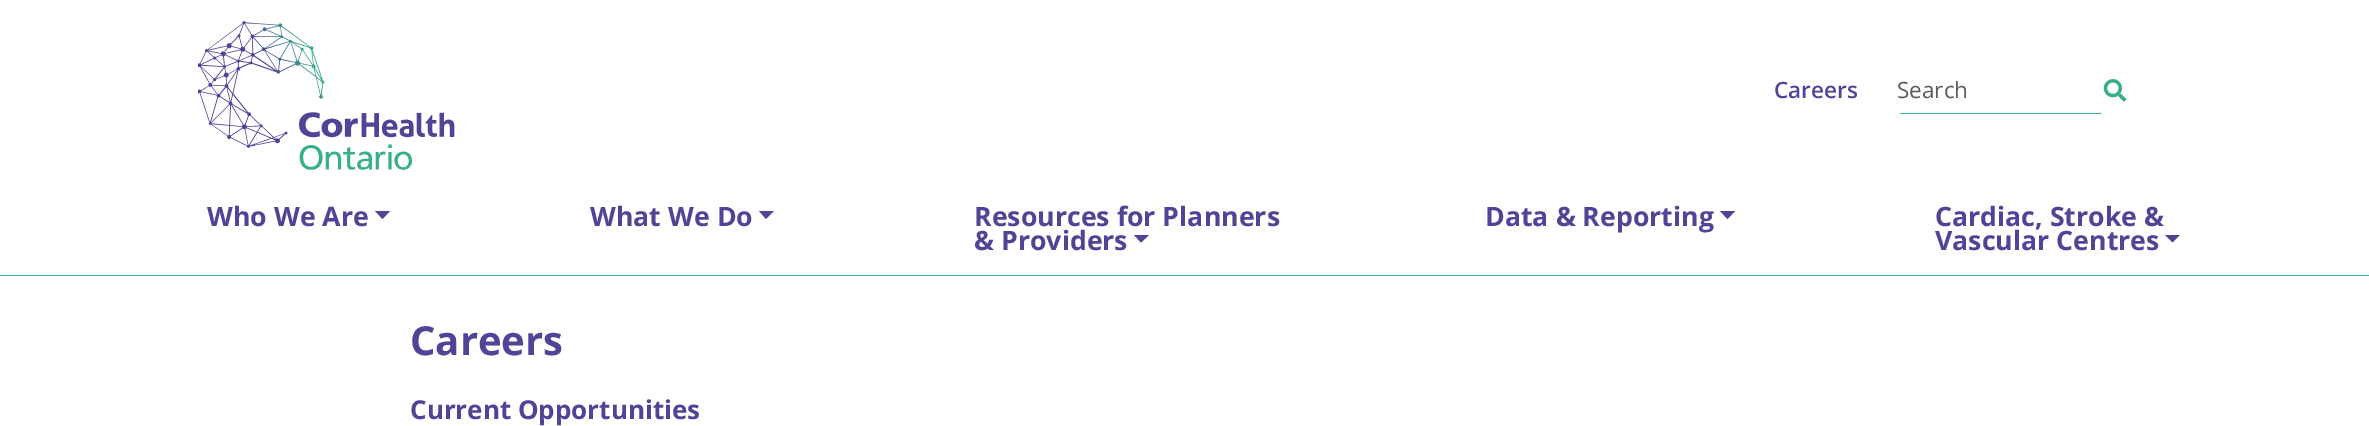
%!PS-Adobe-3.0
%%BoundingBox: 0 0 2369 426
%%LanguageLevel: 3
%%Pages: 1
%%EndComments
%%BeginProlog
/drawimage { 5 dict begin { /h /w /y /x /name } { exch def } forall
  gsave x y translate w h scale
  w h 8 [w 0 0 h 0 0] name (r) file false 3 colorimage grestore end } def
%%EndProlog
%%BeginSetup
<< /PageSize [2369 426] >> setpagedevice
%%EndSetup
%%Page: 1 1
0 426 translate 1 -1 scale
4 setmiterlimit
1 setgray
0 0 2369 426 rectfill
(images/1.raw) 198 21 257 149 drawimage
0.22 0.686 0.545 setrgbcolor
1900 113 201 1 rectfill
(images/2.raw) 2103 79 24 23 drawimage
0.318 0.263 0.588 setrgbcolor
newpath 375 211 moveto 390 211 lineto 382.5 219 lineto closepath fill
newpath 759 211 moveto 774 211 lineto 766 219 lineto closepath fill
newpath 1134 235 moveto 1149 235 lineto 1141 242.5 lineto closepath fill
newpath 1720 211 moveto 1735 211 lineto 1727.5 219 lineto closepath fill
newpath 2165 235 moveto 2180 235 lineto 2172.5 242.5 lineto closepath fill
0.22 0.686 0.545 setrgbcolor
0 275 2369 1 rectfill
/OpenSans-SemiBold [22.5 0 0 -22.5 0 0] selectfont
0.318 0.263 0.588 setrgbcolor
1774 98 moveto (Careers) show
/OpenSans-Regular [22.5 0 0 -22.5 0 0] selectfont
0.349 0.361 0.373 setrgbcolor
1897 98 moveto (Search) show
/OpenSans-Bold [26.7 0 0 -26.7 0 0] selectfont
0.318 0.263 0.588 setrgbcolor
207 226 moveto (Who We Are) show
590 226 moveto (What We Do) show
974 226 moveto (Resources for Planners) show
974 250 moveto (& Providers) show
1485 226 moveto (Data & Reporting) show
1935 226 moveto (Cardiac, Stroke &) show
1935 250 moveto (Vascular Centres) show
/OpenSans-Bold [40 0 0 -40 0 0] selectfont
410 355 moveto (Careers) show
/OpenSans-Bold [26 0 0 -26 0 0] selectfont
410 419 moveto (Current Opportunities) show
showpage
%%EOF
